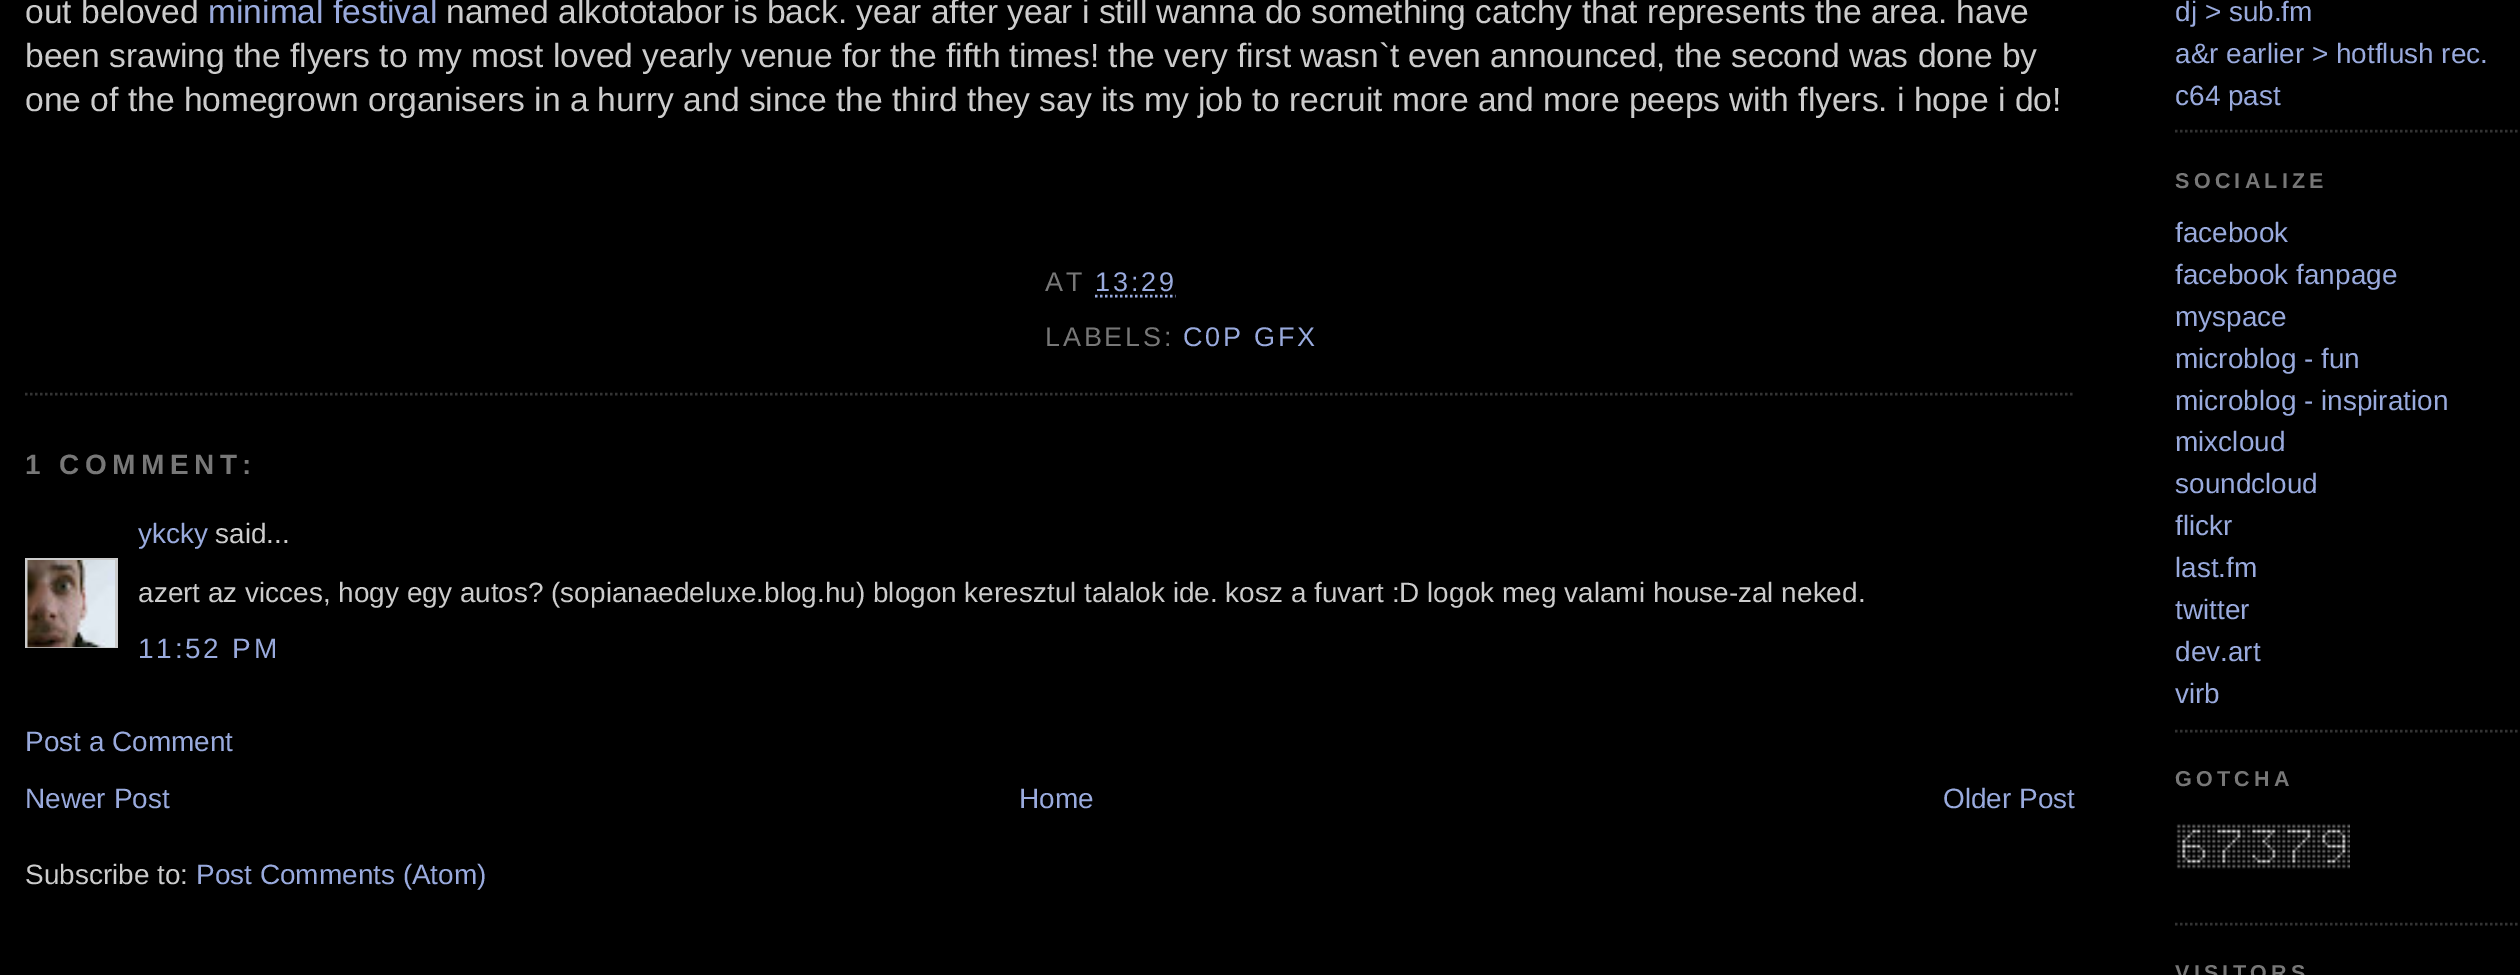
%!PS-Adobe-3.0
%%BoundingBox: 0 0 2520 975
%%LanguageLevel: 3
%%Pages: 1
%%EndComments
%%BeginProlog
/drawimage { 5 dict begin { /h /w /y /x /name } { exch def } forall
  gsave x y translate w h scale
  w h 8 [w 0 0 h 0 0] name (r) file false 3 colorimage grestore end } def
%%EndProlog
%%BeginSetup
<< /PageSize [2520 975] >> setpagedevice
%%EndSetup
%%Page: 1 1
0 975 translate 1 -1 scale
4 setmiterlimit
0 setgray
0 0 2520 975 rectfill
0.2 setgray
2.5 setlinewidth
[2.5 2.5] 0 setdash
newpath 25 394 moveto 2075 394 lineto stroke
0.6 0.667 0.867 setrgbcolor
newpath 1095 296 moveto 1175.5 296 lineto stroke
gsave
25 558 93 90 rectclip
0.8 setgray
3 setlinewidth
[] 0 setdash
26.5 559.5 90 89 rectstroke
grestore
(images/1.raw) 27 560 88 88 drawimage
0.2 setgray
newpath 2175 131 moveto 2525 131 lineto stroke
newpath 2175 731 moveto 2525 731 lineto stroke
newpath 2175 924 moveto 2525 924 lineto stroke
(images/2.raw) 2176 824 174 45 drawimage
/LiberationSans-Regular [33.55 0 0 -33.55 0 0] selectfont
0.8 setgray
25 23 moveto (out beloved) show
0.6 0.667 0.867 setrgbcolor
208 23 moveto (minimal festival) show
0.8 setgray
446 23 moveto (named alkototabor is back. year after year i still wanna do something catchy that represents the area. have) show
25 67 moveto (been srawing the flyers to my most loved yearly venue for the fifth times! the very first wasn`t even announced, the second was done by) show
25 111 moveto (one of the homegrown organisers in a hurry and since the third they say its my job to recruit more and more peeps with flyers. i hope i do!) show
/LiberationSans-Regular [27 0 0 -27 0 0] selectfont
0.467 setgray
1045 291 moveto 2.75 0 (AT) ashow
0.6 0.667 0.867 setrgbcolor
1095 291 moveto 2.75 0 (13:29) ashow
0.467 setgray
1045 346 moveto 2.75 0 (LABELS:) ashow
0.6 0.667 0.867 setrgbcolor
1183 346 moveto 2.75 0 (C0P GFX) ashow
/LiberationSans-Bold [27.95 0 0 -27.95 0 0] selectfont
0.467 setgray
25 474 moveto 5.5 0 (1 COMMENT:) ashow
/LiberationSans-Regular [27.95 0 0 -27.95 0 0] selectfont
0.6 0.667 0.867 setrgbcolor
138 543 moveto (ykcky) show
0.8 setgray
215 543 moveto (said...) show
138 602 moveto (azert az vicces, hogy egy autos? \(sopianaedeluxe.blog.hu\) blogon keresztul talalok ide. kosz a fuvart :D logok meg valami house-zal neked.) show
0.6 0.667 0.867 setrgbcolor
138 658 moveto 2.75 0 (11:52 PM) ashow
25 751 moveto (Post a Comment) show
25 808 moveto (Newer Post) show
1019 808 moveto (Home) show
1943 808 moveto (Older Post) show
0.8 setgray
25 884 moveto (Subscribe to:) show
0.6 0.667 0.867 setrgbcolor
196 884 moveto (Post Comments \(Atom\)) show
2175 21 moveto (dj > sub.fm) show
2175 63 moveto (a&r earlier > hotflush rec.) show
2175 105 moveto (c64 past) show
/LiberationSans-Bold [21.5 0 0 -21.5 0 0] selectfont
0.467 setgray
2175 188 moveto 4.25 0 (SOCIALIZE) ashow
/LiberationSans-Regular [27.95 0 0 -27.95 0 0] selectfont
0.6 0.667 0.867 setrgbcolor
2175 242 moveto (facebook) show
2175 284 moveto (facebook fanpage) show
2175 326 moveto (myspace) show
2175 368 moveto (microblog - fun) show
2175 410 moveto (microblog - inspiration) show
2175 451 moveto (mixcloud) show
2175 493 moveto (soundcloud) show
2175 535 moveto (flickr) show
2175 577 moveto (last.fm) show
2175 619 moveto (twitter) show
2175 661 moveto (dev.art) show
2175 703 moveto (virb) show
/LiberationSans-Bold [21.5 0 0 -21.5 0 0] selectfont
0.467 setgray
2175 786 moveto 4.25 0 (GOTCHA) ashow
2175 980 moveto 4.25 0 (VISITORS) ashow
showpage
%%EOF
